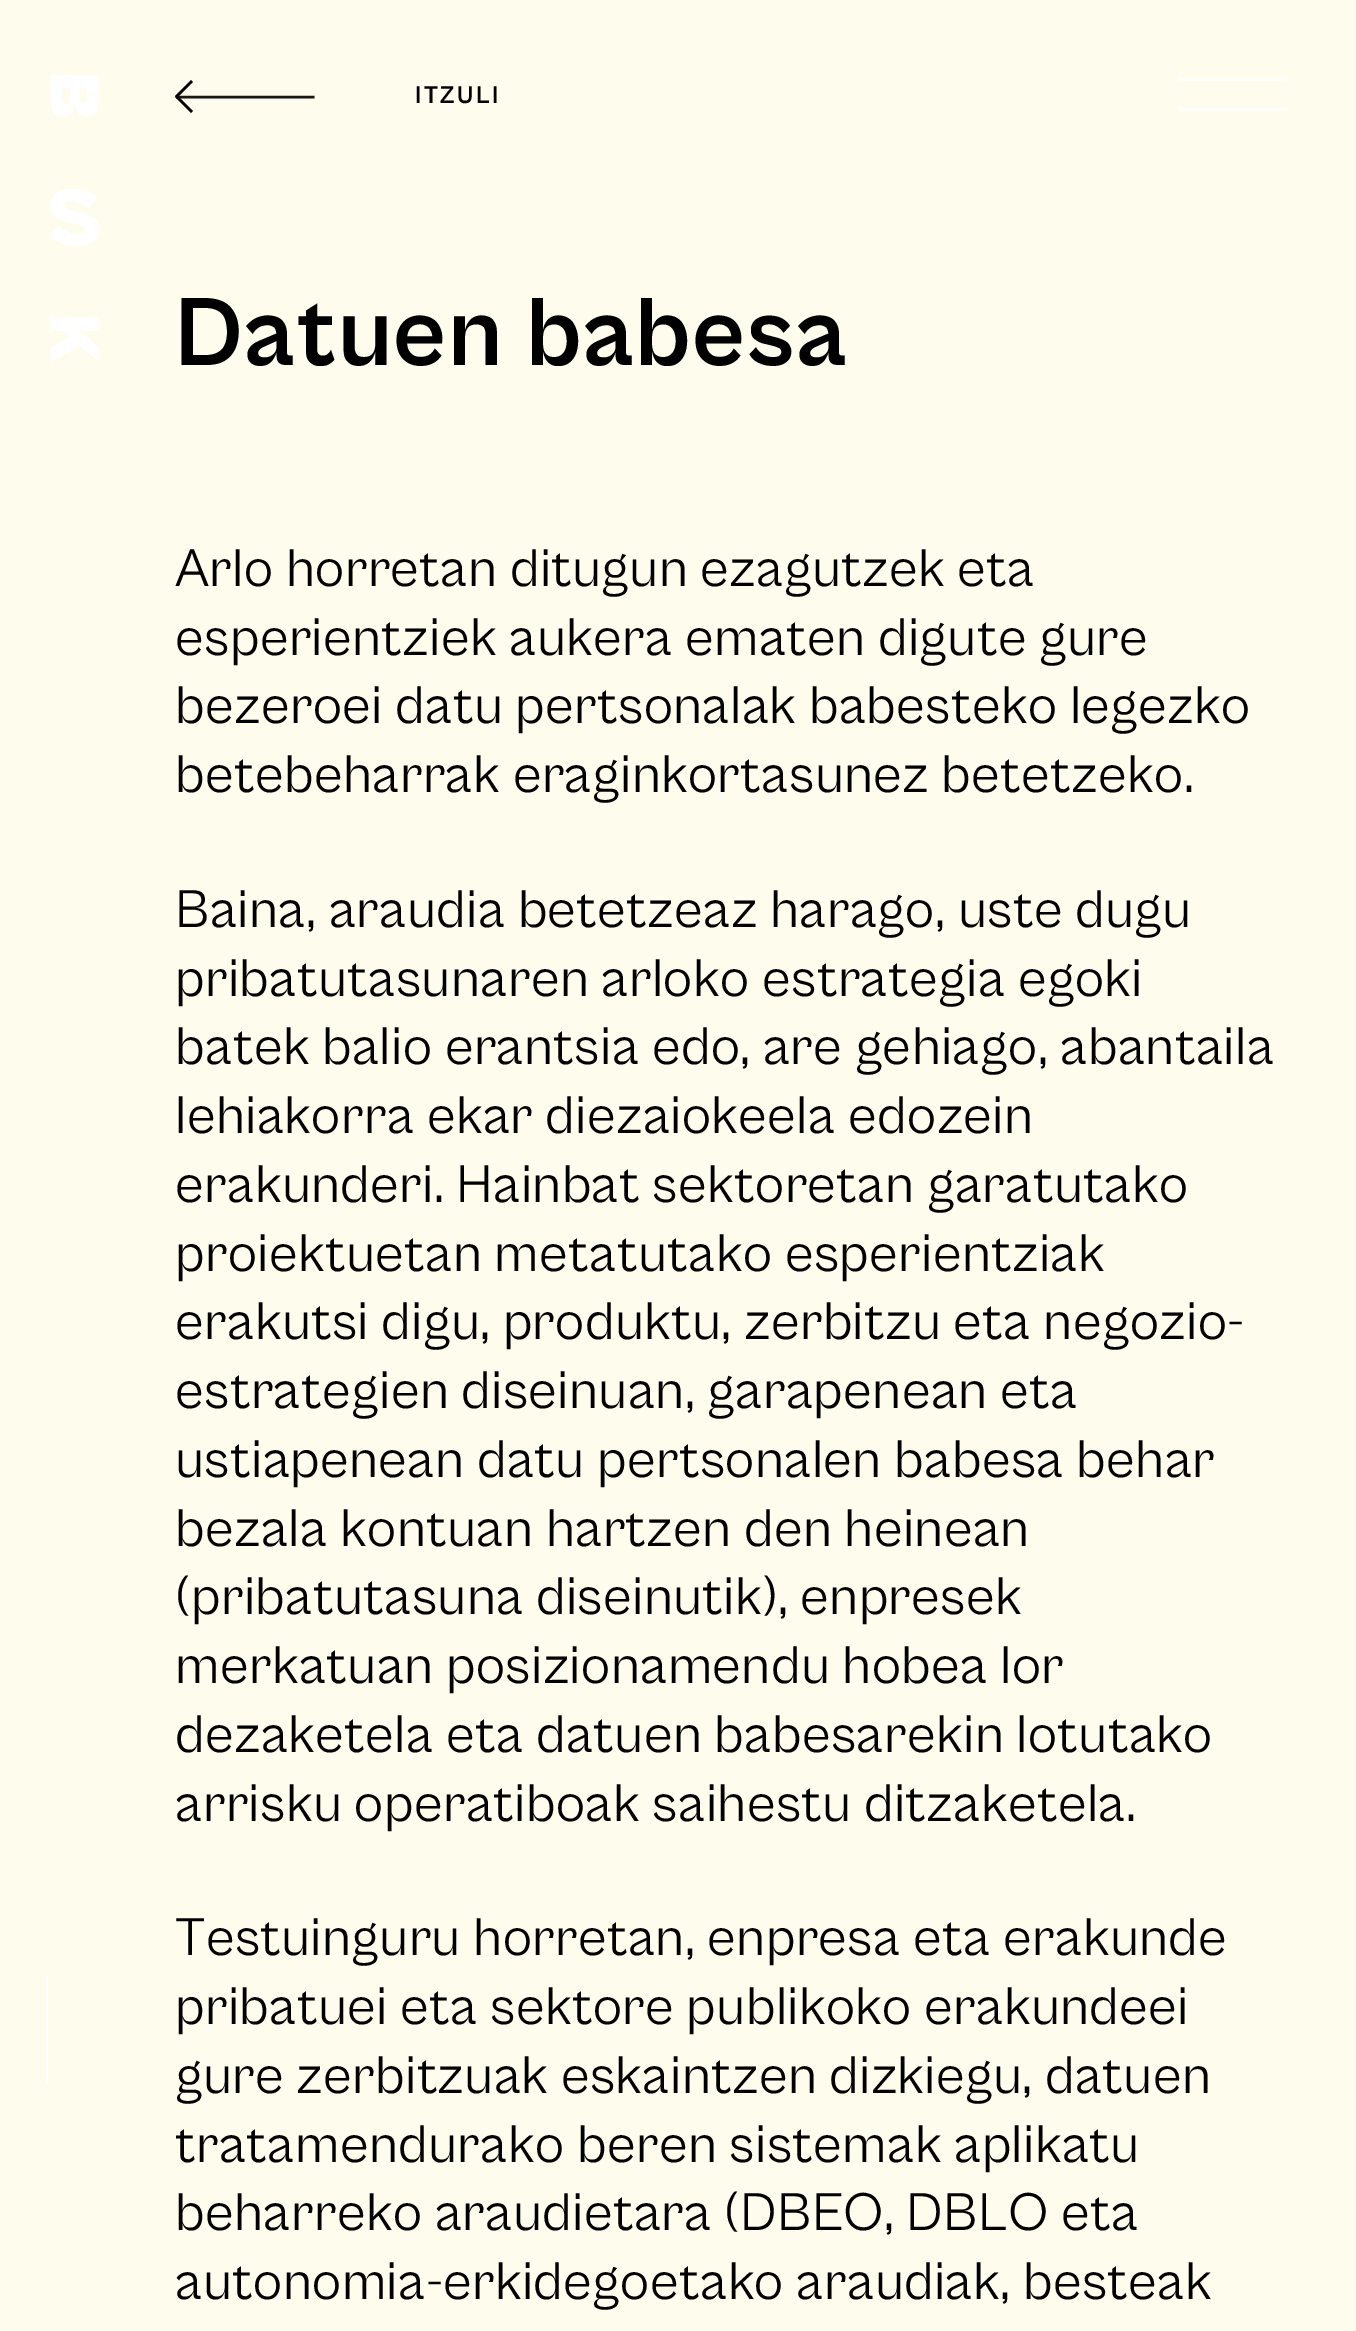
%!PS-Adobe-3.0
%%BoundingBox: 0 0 1356 2331
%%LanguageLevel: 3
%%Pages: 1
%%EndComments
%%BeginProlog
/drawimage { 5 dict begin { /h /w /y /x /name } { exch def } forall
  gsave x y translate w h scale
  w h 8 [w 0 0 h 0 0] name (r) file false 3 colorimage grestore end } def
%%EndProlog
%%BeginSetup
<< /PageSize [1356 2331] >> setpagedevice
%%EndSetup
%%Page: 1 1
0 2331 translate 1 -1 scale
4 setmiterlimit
0.996 0.988 0.929 setrgbcolor
0 0 1356 2331 rectfill
(images/1.raw) 50 75 49 287 drawimage
gsave
1178 75 110 40 rectclip
1 setgray
2.2 setlinewidth
newpath 1177.5 79.5 moveto 1287.5 79.5 lineto stroke
newpath 1177.5 109.5 moveto 1287.5 109.5 lineto stroke
grestore
1 setgray
46 1976 2 107 rectfill
0.098 0.098 0.094 setrgbcolor
2.5 setlinewidth
newpath 176 97 moveto 314.5 97 lineto stroke
0 setgray
newpath 192 112 moveto 176 96 lineto 176 97 moveto 192 81 lineto stroke
/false-Bold [25 0 0 -25 0 0] selectfont
415 103 moveto 2.5 0 (ITZULI) ashow
/false-Bold [100 0 0 -100 0 0] selectfont
175 365 moveto 1.25 0 (Datuen babesa) ashow
/false-Regular [55 0 0 -55 0 0] selectfont
175 586 moveto 0.25 0 (Arlo horretan ditugun ezagutzek eta) ashow
175 655 moveto 0.25 0 (esperientziek aukera ematen digute gure) ashow
175 723 moveto 0.25 0 (bezeroei datu pertsonalak babesteko legezko) ashow
175 792 moveto 0.25 0 (betebeharrak eraginkortasunez betetzeko.) ashow
175 927 moveto 0.25 0 (Baina, araudia betetzeaz harago, uste dugu) ashow
175 996 moveto 0.25 0 (pribatutasunaren arloko estrategia egoki) ashow
175 1064 moveto 0.25 0 (batek balio erantsia edo, are gehiago, abantaila) ashow
175 1133 moveto 0.25 0 (lehiakorra ekar diezaiokeela edozein) ashow
175 1202 moveto 0.25 0 (erakunderi. Hainbat sektoretan garatutako) ashow
175 1271 moveto 0.25 0 (proiektuetan metatutako esperientziak) ashow
175 1339 moveto 0.25 0 (erakutsi digu, produktu, zerbitzu eta negozio-) ashow
175 1408 moveto 0.25 0 (estrategien diseinuan, garapenean eta) ashow
175 1477 moveto 0.25 0 (ustiapenean datu pertsonalen babesa behar) ashow
175 1546 moveto 0.25 0 (bezala kontuan hartzen den heinean) ashow
175 1614 moveto 0.25 0 (\(pribatutasuna diseinutik\), enpresek) ashow
175 1683 moveto 0.25 0 (merkatuan posizionamendu hobea lor) ashow
175 1752 moveto 0.25 0 (dezaketela eta datuen babesarekin lotutako) ashow
175 1821 moveto 0.25 0 (arrisku operatiboak saihestu ditzaketela.) ashow
175 1955 moveto 0.25 0 (Testuinguru horretan, enpresa eta erakunde) ashow
175 2024 moveto 0.25 0 (pribatuei eta sektore publikoko erakundeei) ashow
175 2093 moveto 0.25 0 (gure zerbitzuak eskaintzen dizkiegu, datuen) ashow
175 2162 moveto 0.25 0 (tratamendurako beren sistemak aplikatu) ashow
175 2230 moveto 0.25 0 (beharreko araudietara \(DBEO, DBLO eta) ashow
175 2299 moveto 0.25 0 (autonomia-erkidegoetako araudiak, besteak) ashow
showpage
%%EOF
